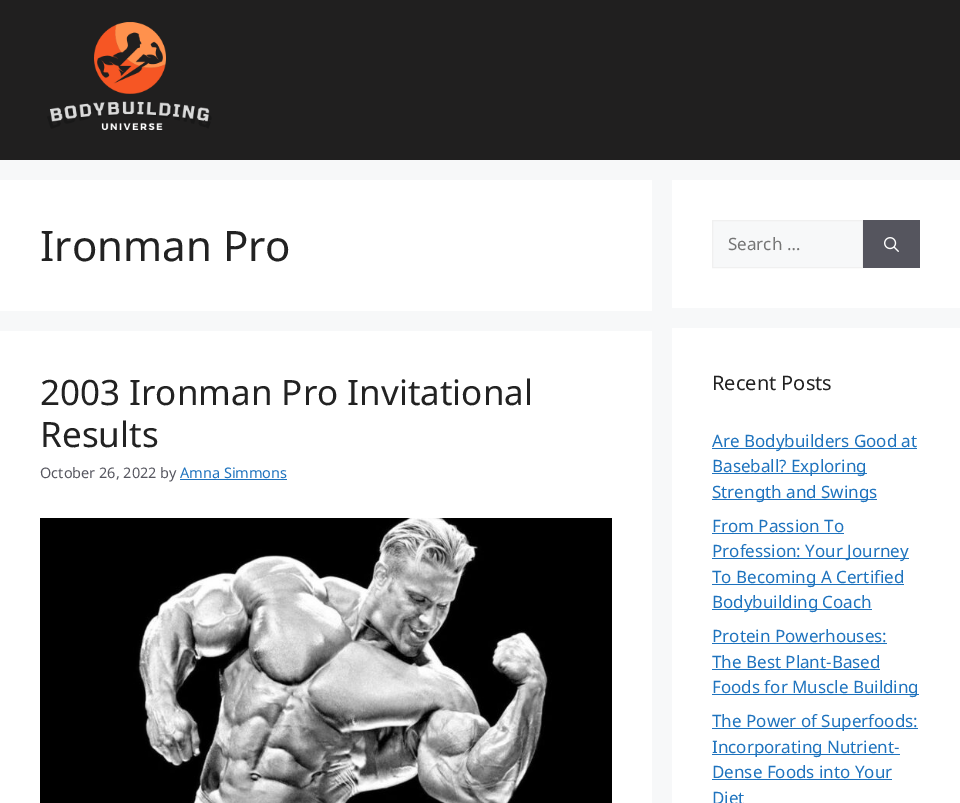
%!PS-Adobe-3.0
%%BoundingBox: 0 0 960 803
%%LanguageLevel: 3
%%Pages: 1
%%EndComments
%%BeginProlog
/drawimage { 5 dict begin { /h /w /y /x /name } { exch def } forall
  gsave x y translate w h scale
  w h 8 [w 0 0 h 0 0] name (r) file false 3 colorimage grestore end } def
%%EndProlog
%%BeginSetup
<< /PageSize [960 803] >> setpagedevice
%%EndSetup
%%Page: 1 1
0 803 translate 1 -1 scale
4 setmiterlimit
0.969 0.973 0.976 setrgbcolor
0 0 960 803 rectfill
0.125 0.122 0.122 setrgbcolor
0 0 960 160 rectfill
(images/1.raw) 47 22 165 109 drawimage
1 setgray
0 180 652 131 rectfill
0 331 652 472 rectfill
0.118 0.451 0.745 setrgbcolor
180 479 107 1 rectfill
(images/2.raw) 40 518 572 285 drawimage
1 setgray
672 180 288 128 rectfill
0.969 0.973 0.976 setrgbcolor
newpath 712.5 220.5 moveto 862.5 220.5 lineto 862.5 267.5 lineto 712.5 267.5 lineto closepath gsave fill grestore
0.941 setgray
stroke
0.333 0.333 0.369 setrgbcolor
863 220 57 48 rectfill
(images/3.raw) 884 237 15 15 drawimage
1 setgray
672 328 288 475 rectfill
0.118 0.451 0.745 setrgbcolor
712 448 205 1 rectfill
712 473 155 1 rectfill
712 499 165 1 rectfill
712 533 132 1 rectfill
712 558 197 1 rectfill
712 584 192 1 rectfill
712 609 160 1 rectfill
712 643 175 1 rectfill
712 669 168 1 rectfill
712 694 207 1 rectfill
712 728 206 1 rectfill
712 754 188 1 rectfill
712 779 180 1 rectfill
/NotoSans-Regular [42 0 0 -42 0 0] selectfont
0.133 setgray
40 261 moveto (Ironman Pro) show
/NotoSans-Regular [35 0 0 -35 0 0] selectfont
40 405 moveto (2003 Ironman Pro Invitational) show
40 447 moveto (Results) show
/NotoSans-Regular [14.5 0 0 -14.5 0 0] selectfont
0.341 0.341 0.376 setrgbcolor
40 478 moveto (October 26, 2022 by) show
0.118 0.451 0.745 setrgbcolor
180 478 moveto (Amna Simmons) show
/NotoSans-Regular [17 0 0 -17 0 0] selectfont
0.459 setgray
728 250 moveto (Search …) show
/NotoSans-Regular [20 0 0 -20 0 0] selectfont
0.133 setgray
712 390 moveto (Recent Posts) show
/NotoSans-Regular [17 0 0 -17 0 0] selectfont
0.118 0.451 0.745 setrgbcolor
712 447 moveto (Are Bodybuilders Good at) show
712 472 moveto (Baseball? Exploring) show
712 498 moveto (Strength and Swings) show
712 532 moveto (From Passion To) show
712 557 moveto (Profession: Your Journey) show
712 583 moveto (To Becoming A Certified) show
712 608 moveto (Bodybuilding Coach) show
712 642 moveto (Protein Powerhouses:) show
712 668 moveto (The Best Plant-Based) show
712 693 moveto (Foods for Muscle Building) show
712 727 moveto (The Power of Superfoods:) show
712 753 moveto (Incorporating Nutrient-) show
712 778 moveto (Dense Foods into Your) show
712 804 moveto (Diet) show
showpage
%%EOF
